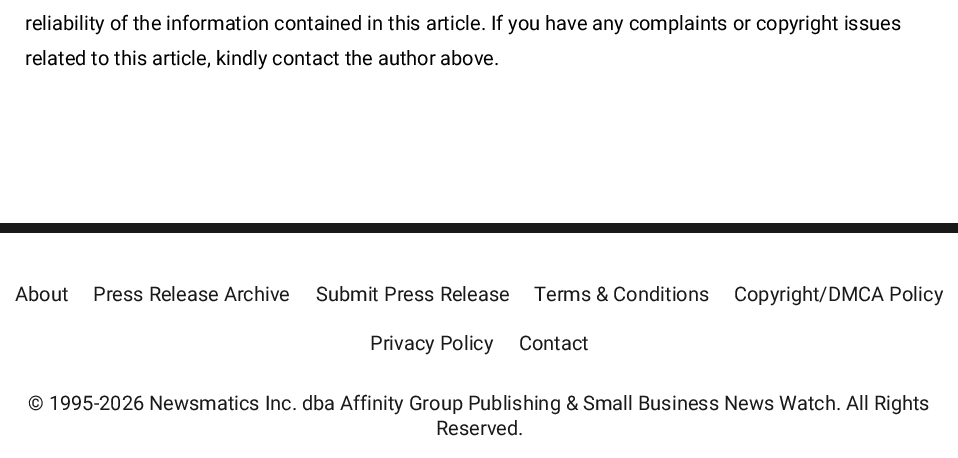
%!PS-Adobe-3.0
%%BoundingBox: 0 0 958 458
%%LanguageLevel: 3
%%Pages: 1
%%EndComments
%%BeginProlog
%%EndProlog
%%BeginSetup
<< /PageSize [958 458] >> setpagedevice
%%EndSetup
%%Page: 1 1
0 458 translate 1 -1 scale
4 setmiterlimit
1 setgray
0 0 958 458 rectfill
0.098 setgray
0 223 958 10 rectfill
/Roboto-Regular [20 0 0 -20 0 0] selectfont
0 setgray
25 30 moveto (reliability of the information contained in this article. If you have any complaints or copyright issues) show
25 65 moveto (related to this article, kindly contact the author above.) show
0.098 setgray
15 301 moveto (About) show
93 301 moveto (Press Release Archive) show
316 301 moveto (Submit Press Release) show
534 301 moveto (Terms & Conditions) show
734 301 moveto (Copyright/DMCA Policy) show
370 350 moveto (Privacy Policy) show
519 350 moveto (Contact) show
28 410 moveto (© 1995-2026 Newsmatics Inc. dba Affinity Group Publishing & Small Business News Watch. All Rights) show
436 435 moveto (Reserved.) show
showpage
%%EOF
